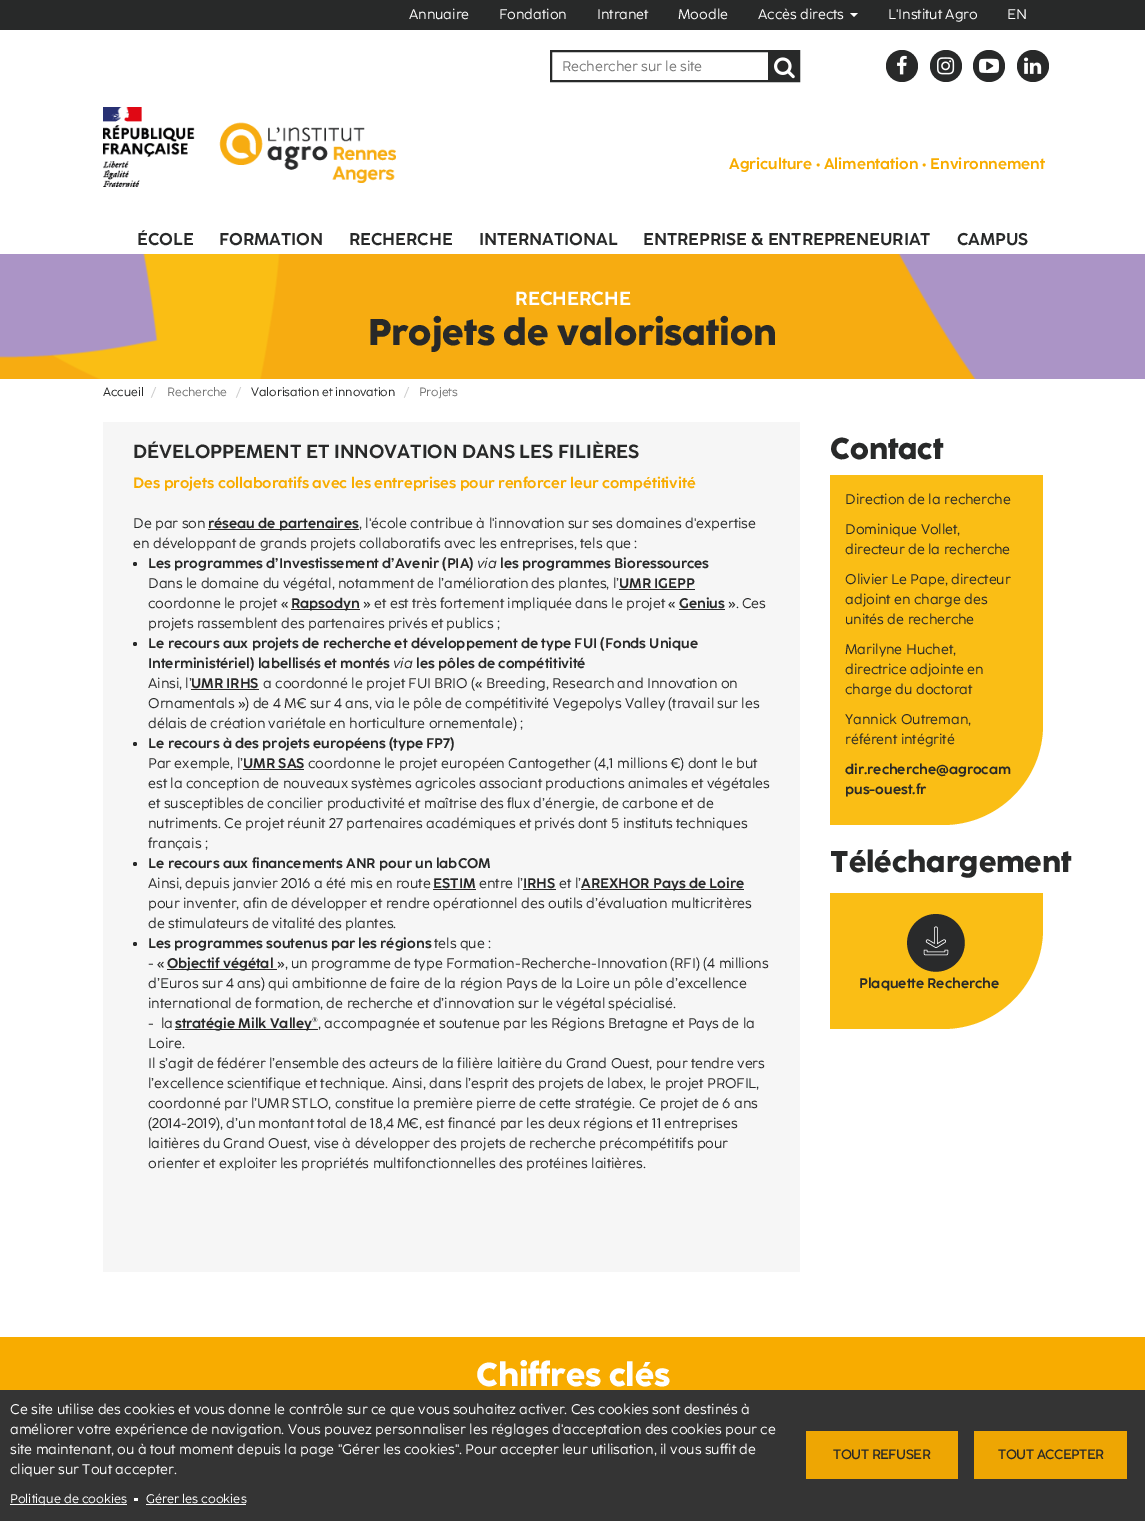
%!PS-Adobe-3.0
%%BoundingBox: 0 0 1145 1521
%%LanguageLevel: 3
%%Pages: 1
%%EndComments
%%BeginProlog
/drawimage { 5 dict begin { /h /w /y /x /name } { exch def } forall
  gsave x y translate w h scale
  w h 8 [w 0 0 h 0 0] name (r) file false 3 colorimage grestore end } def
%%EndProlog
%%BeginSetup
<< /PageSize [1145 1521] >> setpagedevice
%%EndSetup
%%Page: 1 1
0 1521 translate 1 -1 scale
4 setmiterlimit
1 setgray
0 0 1145 1521 rectfill
0.157 0.161 0.161 setrgbcolor
0 0 1145 30 rectfill
1 setgray
newpath 850 13 moveto 858 13 lineto 854 17 lineto closepath fill
0.157 0.161 0.161 setrgbcolor
2 setlinewidth
551 51 248 30 rectstroke
768 52 30 28 rectfill
(images/1.raw) 774 57 21 22 drawimage
newpath 902 66 16 0 360 arc closepath fill
(images/2.raw) 897 55 10 20 drawimage
newpath 946 66 16 0 360 arc closepath fill
(images/3.raw) 937 57 18 18 drawimage
newpath 989 66 16 0 360 arc closepath fill
(images/4.raw) 979 58 20 15 drawimage
newpath 1033 66 16 0 360 arc closepath fill
(images/5.raw) 1024 57 18 17 drawimage
(images/6.raw) 103 107 293 80 drawimage
(images/7.raw) 0 254 1145 125 drawimage
0.98 0.745 0.082 setrgbcolor
newpath 830 475 moveto 1043 475 lineto 1043 725 lineto 1043 780 998 825 943 825 curveto 830 825 lineto closepath fill
newpath 830 845 moveto 1043 845 lineto 1043 929 lineto 1043 984 998 1029 943 1029 curveto 830 1029 lineto closepath fill
1 setgray
830 845 213 48 rectfill
(images/8.raw) 907 914 58 58 drawimage
0.965 setgray
103 422 697 850 rectfill
0.157 0.161 0.161 setrgbcolor
208 529 151 1 rectfill
newpath 135 564 2 0 360 arc closepath fill
619 589 76 1 rectfill
291 609 69 1 rectfill
679 609 46 1 rectfill
newpath 135 644 2 0 360 arc closepath fill
191 689 68 1 rectfill
newpath 135 744 2 0 360 arc closepath fill
243 769 61 1 rectfill
newpath 135 864 2 0 360 arc closepath fill
433 889 43 1 rectfill
523 889 33 1 rectfill
581 889 163 1 rectfill
newpath 135 944 2 0 360 arc closepath fill
167 969 110 1 rectfill
175 1029 143 1 rectfill
0.204 setgray
0 1390 1145 131 rectfill
1 setgray
10 1504 117 1 rectfill
134 1498 4 3 rectfill
146 1504 100 1 rectfill
0.933 0.651 0.012 setrgbcolor
806 1431 152 48 rectfill
974 1431 153 48 rectfill
0.973 0.675 0 setrgbcolor
0 1337 1145 53 rectfill
/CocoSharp-Regular [14 0 0 -14 0 0] selectfont
1 setgray
409 19 moveto (Annuaire) show
499 19 moveto (Fondation) show
597 19 moveto (Intranet) show
678 19 moveto (Moodle) show
758 19 moveto (Accès directs) show
888 19 moveto (L'Institut Agro) show
1007 19 moveto (EN) show
0.467 setgray
562 71 moveto (Rechercher sur le site) show
/CocoSharp-Bold [15.4 0 0 -15.4 0 0] selectfont
0.973 0.675 0 setrgbcolor
729 169 moveto (Agriculture • Alimentation • Environnement) show
/CocoSharp-Bold [17 0 0 -17 0 0] selectfont
0.157 0.161 0.161 setrgbcolor
137 245 moveto (ÉCOLE) show
219 245 moveto (FORMATION) show
349 245 moveto (RECHERCHE) show
479 245 moveto (INTERNATIONAL) show
643 245 moveto (ENTREPRISE & ENTREPRENEURIAT) show
957 245 moveto (CAMPUS) show
/CocoSharp-Bold [19 0 0 -19 0 0] selectfont
1 setgray
515 305 moveto (RECHERCHE) show
/CocoSharp-ExtraBold [37 0 0 -37 0 0] selectfont
0.157 0.161 0.161 setrgbcolor
368 345 moveto (Projets de valorisation) show
/CocoSharp-Regular [12 0 0 -12 0 0] selectfont
103 396 moveto (Accueil) show
0.8 setgray
151 396 moveto (/) show
0.467 setgray
167 396 moveto (Recherche) show
0.8 setgray
236 396 moveto (/) show
0.157 0.161 0.161 setrgbcolor
251 396 moveto (Valorisation et innovation) show
0.8 setgray
404 396 moveto (/) show
0.467 setgray
419 396 moveto (Projets) show
/CocoSharp-ExtraBold [30 0 0 -30 0 0] selectfont
0.157 0.161 0.161 setrgbcolor
830 459 moveto (Contact) show
/CocoSharp-Regular [14 0 0 -14 0 0] selectfont
845 504 moveto (Direction de la recherche) show
845 534 moveto (Dominique Vollet,) show
845 554 moveto (directeur de la recherche) show
845 584 moveto (Olivier Le Pape, directeur) show
845 604 moveto (adjoint en charge des) show
845 624 moveto (unités de recherche) show
845 654 moveto (Marilyne Huchet,) show
845 674 moveto (directrice adjointe en) show
845 694 moveto (charge du doctorat) show
845 724 moveto (Yannick Outreman,) show
845 744 moveto (référent intégrité) show
/CocoSharp-Bold [14 0 0 -14 0 0] selectfont
845 774 moveto (dir.recherche@agrocam) show
845 794 moveto (pus-ouest.fr) show
/CocoSharp-ExtraBold [30 0 0 -30 0 0] selectfont
830 872 moveto (Téléchargement) show
/CocoSharp-Bold [14 0 0 -14 0 0] selectfont
859 988 moveto (Plaquette Recherche) show
/CocoSharp-Bold [19 0 0 -19 0 0] selectfont
133 458 moveto (DÉVELOPPEMENT ET INNOVATION DANS LES FILIÈRES) show
/CocoSharp-Bold [15 0 0 -15 0 0] selectfont
0.973 0.675 0 setrgbcolor
133 488 moveto (Des projets collaboratifs avec les entreprises pour renforcer leur compétitivité) show
/CocoSharp-Regular [14 0 0 -14 0 0] selectfont
0.157 0.161 0.161 setrgbcolor
133 528 moveto (De par son) show
/CocoSharp-Bold [14 0 0 -14 0 0] selectfont
208 528 moveto (réseau de partenaires) show
/CocoSharp-Regular [14 0 0 -14 0 0] selectfont
359 528 moveto (, l'école contribue à l'innovation sur ses domaines d'expertise) show
133 548 moveto (en développant de grands projets collaboratifs avec les entreprises, tels que :) show
/CocoSharp-Bold [14 0 0 -14 0 0] selectfont
148 568 moveto (Les programmes d’Investissement d’Avenir \(PIA\)) show
/CocoSharp-Italic [14 0 0 -14 0 0] selectfont
477 568 moveto (via) show
/CocoSharp-Bold [14 0 0 -14 0 0] selectfont
500 568 moveto (les programmes Bioressources) show
/CocoSharp-Regular [14 0 0 -14 0 0] selectfont
148 588 moveto (Dans le domaine du végétal, notamment de l’amélioration des plantes, l’) show
/CocoSharp-Bold [14 0 0 -14 0 0] selectfont
619 588 moveto (UMR IGEPP) show
/CocoSharp-Regular [14 0 0 -14 0 0] selectfont
148 608 moveto (coordonne le projet «) show
/CocoSharp-Bold [14 0 0 -14 0 0] selectfont
291 608 moveto (Rapsodyn) show
/CocoSharp-Regular [14 0 0 -14 0 0] selectfont
363 608 moveto (» et est très fortement impliquée dans le projet «) show
/CocoSharp-Bold [14 0 0 -14 0 0] selectfont
679 608 moveto (Genius) show
/CocoSharp-Regular [14 0 0 -14 0 0] selectfont
728 608 moveto (». Ces) show
148 628 moveto (projets rassemblent des partenaires privés et publics ;) show
/CocoSharp-Bold [14 0 0 -14 0 0] selectfont
148 648 moveto (Le recours aux projets de recherche et développement de type FUI \(Fonds Unique) show
148 668 moveto (Interministériel\) labellisés et montés) show
/CocoSharp-Italic [14 0 0 -14 0 0] selectfont
393 668 moveto (via) show
/CocoSharp-Bold [14 0 0 -14 0 0] selectfont
416 668 moveto (les pôles de compétitivité) show
/CocoSharp-Regular [14 0 0 -14 0 0] selectfont
148 688 moveto (Ainsi, l’) show
/CocoSharp-Bold [14 0 0 -14 0 0] selectfont
191 688 moveto (UMR IRHS) show
/CocoSharp-Regular [14 0 0 -14 0 0] selectfont
263 688 moveto (a coordonné le projet FUI BRIO \(« Breeding, Research and Innovation on) show
148 708 moveto (Ornamentals »\) de 4 M€ sur 4 ans, via le pôle de compétitivité Vegepolys Valley \(travail sur les) show
148 728 moveto (délais de création variétale en horticulture ornementale\) ;) show
/CocoSharp-Bold [14 0 0 -14 0 0] selectfont
148 748 moveto (Le recours à des projets européens \(type FP7\)) show
/CocoSharp-Regular [14 0 0 -14 0 0] selectfont
148 768 moveto (Par exemple, l’) show
/CocoSharp-Bold [14 0 0 -14 0 0] selectfont
243 768 moveto (UMR SAS) show
/CocoSharp-Regular [14 0 0 -14 0 0] selectfont
308 768 moveto (coordonne le projet européen Cantogether \(4,1 millions €\) dont le but) show
148 788 moveto (est la conception de nouveaux systèmes agricoles associant productions animales et végétales) show
148 808 moveto (et susceptibles de concilier productivité et maîtrise des flux d’énergie, de carbone et de) show
148 828 moveto (nutriments. Ce projet réunit 27 partenaires académiques et privés dont 5 instituts techniques) show
148 848 moveto (français ;) show
/CocoSharp-Bold [14 0 0 -14 0 0] selectfont
148 868 moveto (Le recours aux financements ANR pour un labCOM) show
/CocoSharp-Regular [14 0 0 -14 0 0] selectfont
148 888 moveto (Ainsi, depuis janvier 2016 a été mis en route) show
/CocoSharp-Bold [14 0 0 -14 0 0] selectfont
433 888 moveto (ESTIM) show
/CocoSharp-Regular [14 0 0 -14 0 0] selectfont
479 888 moveto (entre l’) show
/CocoSharp-Bold [14 0 0 -14 0 0] selectfont
523 888 moveto (IRHS) show
/CocoSharp-Regular [14 0 0 -14 0 0] selectfont
559 888 moveto (et l’) show
/CocoSharp-Bold [14 0 0 -14 0 0] selectfont
581 888 moveto (AREXHOR Pays de Loire) show
/CocoSharp-Regular [14 0 0 -14 0 0] selectfont
148 908 moveto (pour inventer, afin de développer et rendre opérationnel des outils d’évaluation multicritères) show
148 928 moveto (de stimulateurs de vitalité des plantes.) show
/CocoSharp-Bold [14 0 0 -14 0 0] selectfont
148 948 moveto (Les programmes soutenus par les régions) show
/CocoSharp-Regular [14 0 0 -14 0 0] selectfont
434 948 moveto (tels que :) show
148 968 moveto (- «) show
/CocoSharp-Bold [14 0 0 -14 0 0] selectfont
167 968 moveto (Objectif végétal) show
/CocoSharp-Regular [14 0 0 -14 0 0] selectfont
277 968 moveto (», un programme de type Formation-Recherche-Innovation \(RFI\) \(4 millions) show
148 988 moveto (d’Euros sur 4 ans\) qui ambitionne de faire de la région Pays de la Loire un pôle d’excellence) show
148 1008 moveto (international de formation, de recherche et d’innovation sur le végétal spécialisé.) show
148 1028 moveto (-  la) show
/CocoSharp-Bold [14 0 0 -14 0 0] selectfont
175 1028 moveto (stratégie Milk Valley®) show
/CocoSharp-Regular [14 0 0 -14 0 0] selectfont
318 1028 moveto (, accompagnée et soutenue par les Régions Bretagne et Pays de la) show
148 1048 moveto (Loire.) show
148 1068 moveto (Il s’agit de fédérer l’ensemble des acteurs de la filière laitière du Grand Ouest, pour tendre vers) show
148 1088 moveto (l’excellence scientifique et technique. Ainsi, dans l’esprit des projets de labex, le projet PROFIL,) show
148 1108 moveto (coordonné par l’UMR STLO, constitue la première pierre de cette stratégie. Ce projet de 6 ans) show
148 1128 moveto (\(2014-2019\), d’un montant total de 18,4 M€, est financé par les deux régions et 11 entreprises) show
148 1148 moveto (laitières du Grand Ouest, vise à développer des projets de recherche précompétitifs pour) show
148 1168 moveto (orienter et exploiter les propriétés multifonctionnelles des protéines laitières.) show
1 setgray
10 1414 moveto (Ce site utilise des cookies et vous donne le contrôle sur ce que vous souhaitez activer. Ces cookies sont destinés à) show
10 1434 moveto (améliorer votre expérience de navigation. Vous pouvez personnaliser les réglages d'acceptation des cookies pour ce) show
10 1454 moveto (site maintenant, ou à tout moment depuis la page "Gérer les cookies". Pour accepter leur utilisation, il vous suffit de) show
10 1474 moveto (cliquer sur Tout accepter.) show
/CocoSharp-Regular [12.5 0 0 -12.5 0 0] selectfont
10 1503 moveto (Politique de cookies) show
146 1503 moveto (Gérer les cookies) show
/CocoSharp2-Bold [13 0 0 -13 0 0] selectfont
0.157 0.161 0.161 setrgbcolor
833 1459 moveto (TOUT REFUSER) show
998 1459 moveto (TOUT ACCEPTER) show
/CocoSharp-ExtraBold [33 0 0 -33 0 0] selectfont
1 setgray
476 1386 moveto (Chiffres clés) show
showpage
%%EOF
